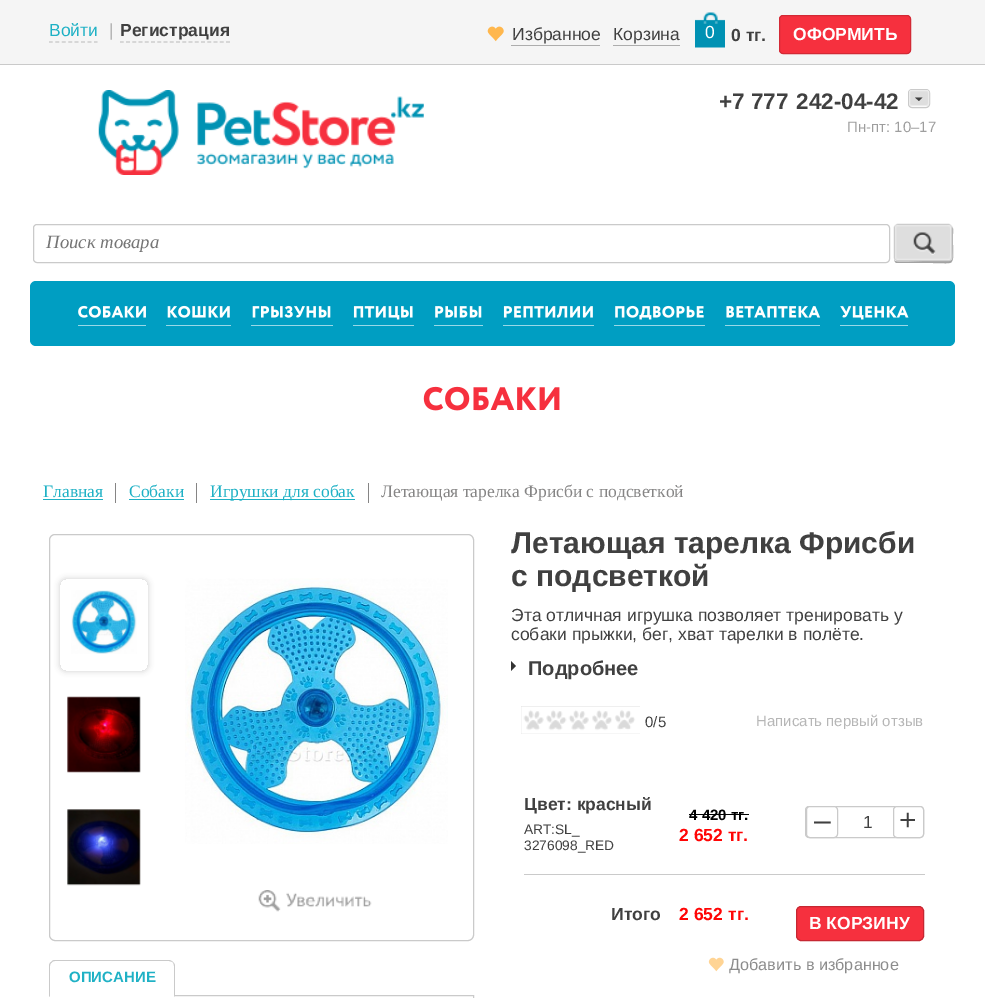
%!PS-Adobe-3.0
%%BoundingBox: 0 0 985 998
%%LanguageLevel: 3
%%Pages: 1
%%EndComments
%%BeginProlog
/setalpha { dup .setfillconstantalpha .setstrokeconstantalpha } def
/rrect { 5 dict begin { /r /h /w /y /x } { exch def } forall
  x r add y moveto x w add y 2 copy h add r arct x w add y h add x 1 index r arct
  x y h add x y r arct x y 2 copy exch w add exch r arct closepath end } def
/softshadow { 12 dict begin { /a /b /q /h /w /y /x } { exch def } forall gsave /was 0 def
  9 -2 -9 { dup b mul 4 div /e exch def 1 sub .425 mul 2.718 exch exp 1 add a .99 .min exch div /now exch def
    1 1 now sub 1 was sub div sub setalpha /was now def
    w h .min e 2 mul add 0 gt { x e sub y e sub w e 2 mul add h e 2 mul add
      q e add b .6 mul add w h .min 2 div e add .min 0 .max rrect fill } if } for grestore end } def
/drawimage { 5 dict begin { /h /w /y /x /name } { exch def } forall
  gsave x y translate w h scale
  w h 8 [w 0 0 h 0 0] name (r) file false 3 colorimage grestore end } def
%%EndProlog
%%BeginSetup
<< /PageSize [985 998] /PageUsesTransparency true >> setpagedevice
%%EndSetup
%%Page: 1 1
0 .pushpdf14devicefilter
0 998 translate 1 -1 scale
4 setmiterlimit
1 setgray
0 0 985 998 rectfill
0.961 setgray
0 0 985 64 rectfill
0.792 setgray
0 64 985 1 rectfill
0.8 setgray
1.2 setlinewidth
[3.75 2.68] 0 setdash
newpath 49 42 moveto 97.5 42 lineto stroke
[3.75 2.5] 0 setdash
newpath 120 42 moveto 230 42 lineto stroke
0.678 setgray
511 45 89 1 rectfill
(images/1.raw) 487 26 17 16 drawimage
613 45 67 1 rectfill
(images/2.raw) 695 12 30 36 drawimage
0.965 0.188 0.243 setrgbcolor
779.5 15.5 131 38 3.5 rrect gsave fill grestore
0.827 0.161 0.208 setrgbcolor
1 setlinewidth
[] 0 setdash
stroke
(images/3.raw) 98 90 326 85 drawimage
0.792 setgray
908.5 89.5 21 18 3.5 rrect stroke
0.871 setgray
909.5 90.5 19 15 2 rrect gsave fill grestore
0.925 setgray
stroke
0.251 setgray
newpath 915 97.5 moveto 922.5 97.5 lineto 919 101 lineto closepath fill
0.792 setgray
33.5 224.5 856 38 3.5 rrect stroke
0.635 setgray
newpath 894 259 moveto 894 261 895 263 897 263 curveto 932 263 lineto 956 263 953 267 953 244 curveto 953 234 lineto 953 232 954 229 952 227 curveto 952 248 lineto 952 262 955 261 940 261 curveto 923 261 lineto 919 261 898 262 895 261 curveto closepath fill
(images/4.raw) 893 223 60 39 drawimage
0 0.62 0.761 setrgbcolor
30 281 925 65 6 rrect fill
0.6 0.847 0.906 setrgbcolor
78 325 68 1 rectfill
(images/5.raw) 78 305 68 13 drawimage
166 325 65 1 rectfill
(images/6.raw) 167 305 63 13 drawimage
251 325 82 1 rectfill
(images/7.raw) 252 305 79 13 drawimage
353 325 61 1 rectfill
(images/8.raw) 353 306 60 14 drawimage
434 325 49 1 rectfill
(images/9.raw) 435 306 47 12 drawimage
503 325 91 1 rectfill
(images/10.raw) 503 306 90 12 drawimage
614 325 91 1 rectfill
(images/11.raw) 615 305 89 15 drawimage
725 325 95 1 rectfill
(images/12.raw) 726 306 95 12 drawimage
840 325 68 1 rectfill
(images/13.raw) 840 306 69 14 drawimage
(images/14.raw) 423 386 137 25 drawimage
0.122 0.694 0.773 setrgbcolor
43 499 60 1 rectfill
0.525 0.522 0.522 setrgbcolor
115 483 1 20 rectfill
0.122 0.694 0.773 setrgbcolor
129 499 55 1 rectfill
0.525 0.522 0.522 setrgbcolor
196 483 1 20 rectfill
0.122 0.694 0.773 setrgbcolor
210 499 145 1 rectfill
0.525 0.522 0.522 setrgbcolor
368 483 1 20 rectfill
0.792 setgray
49.5 534.5 424 406 5.5 rrect stroke
gsave
newpath 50 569 moveto 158 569 lineto 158 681 lineto 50 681 lineto closepath 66 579 moveto 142 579 lineto 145.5 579 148 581.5 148 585 curveto 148 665 lineto 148 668.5 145.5 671 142 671 curveto 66 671 lineto 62.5 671 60 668.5 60 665 curveto 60 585 lineto 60 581.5 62.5 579 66 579 curveto closepath eoclip newpath
0.8 setgray
60 579 88 92 6 3 1 softshadow
grestore
(images/15.raw) 71 590 66 64 drawimage
(images/16.raw) 67 696 74 77 drawimage
(images/17.raw) 67 809 74 77 drawimage
(images/18.raw) 185 578 263 266 drawimage
(images/19.raw) 258 890 114 22 drawimage
0.2 setgray
newpath 511 671 moveto 511 661 lineto 516 666 lineto closepath fill
0.855 setgray
521 706 119 28 rectfill
(images/20.raw) 521 706 119 28 drawimage
0 setgray
689 814 60 1 rectfill
0.792 setgray
805.5 806.5 118 31 3.5 rrect stroke
1 setgray
806.5 806.5 31 31 3.5 rrect gsave fill grestore
0.792 setgray
stroke
1 setgray
893.5 806.5 30 31 3.5 rrect gsave fill grestore
0.792 setgray
stroke
524 874 401 1 rectfill
0.965 0.188 0.243 setrgbcolor
796.5 906.5 127 34 4.5 rrect gsave fill grestore
0.776 0.153 0.196 setrgbcolor
stroke
(images/21.raw) 708 957 16 15 drawimage
0.792 setgray
49.5 995.5 424 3 rectstroke
1 setgray
newpath 55 960 moveto 169 960 lineto 172.5 960 175 962.5 175 966 curveto 175 998 lineto 49 998 lineto 49 966 lineto 49 962.5 51.5 960 55 960 curveto closepath fill
0.792 setgray
newpath 55 960 moveto 53 960 52 961 51 962 curveto 51 963 lineto 52 962 53 961 55 961 curveto 169 961 lineto 170 961 172 962 173 962 curveto 172 961 170 960 169 960 curveto closepath fill
newpath 175 997.5 moveto 175 966 lineto 175 964.5 174 963 173 962 curveto 172.5 962.5 lineto 173.5 963 174 964.5 174 966 curveto 174 996 lineto 173.5 996 lineto closepath fill
1 setgray
newpath 175 998 moveto 49 998 lineto 50 996 lineto 174 996 lineto closepath fill
0.792 setgray
newpath 51 962 moveto 49.5 963 49 964.5 49 966 curveto 49 997 lineto 50 996 lineto 50 966 lineto 50 964.5 50.5 963.5 51.5 962.5 curveto closepath fill
/LiberationSans-Regular [17.5 0 0 -17.5 0 0] selectfont
0.122 0.694 0.773 setrgbcolor
49 36 moveto (Войти) show
0.714 setgray
109 36 moveto (|) show
/LiberationSans-Bold [17.5 0 0 -17.5 0 0] selectfont
0.251 setgray
120 36 moveto (Регистрация) show
/LiberationSans-Regular [17.5 0 0 -17.5 0 0] selectfont
512 40 moveto (Избранное) show
613 40 moveto (Корзина) show
1 setgray
705 38 moveto (0) show
/LiberationSans-Bold [17.5 0 0 -17.5 0 0] selectfont
0.251 setgray
731 41 moveto (0 тг.) show
1 setgray
793 40 moveto (ОФОРМИТЬ) show
/LiberationSans-Bold [22.5 0 0 -22.5 0 0] selectfont
0.251 setgray
719 109 moveto (+7 777) show
796 109 moveto (242-04-42) show
/LiberationSans-Regular [15 0 0 -15 0 0] selectfont
0.62 setgray
847 132 moveto (Пн-пт: 10–17) show
/LiberationSerif-Italic [18.75 0 0 -18.75 0 0] selectfont
0.459 setgray
46 248 moveto (Поиск товара) show
/LiberationSerif-Regular [17.5 0 0 -17.5 0 0] selectfont
0.122 0.694 0.773 setrgbcolor
43 497 moveto (Главная) show
129 497 moveto (Собаки) show
210 497 moveto (Игрушки для собак) show
0.525 0.522 0.522 setrgbcolor
381 497 moveto (Летающая тарелка Фрисби с подсветкой) show
/LiberationSans-Bold [30 0 0 -30 0 0] selectfont
0.251 setgray
511 553 moveto (Летающая тарелка Фрисби) show
511 586 moveto (с подсветкой) show
/LiberationSans-Regular [17.5 0 0 -17.5 0 0] selectfont
511 621 moveto (Эта отличная игрушка позволяет тренировать у) show
511 640 moveto (собаки прыжки, бег, хват тарелки в полёте.) show
/LiberationSans-Bold [20 0 0 -20 0 0] selectfont
528 675 moveto (Подробнее) show
/LiberationSans-Regular [15 0 0 -15 0 0] selectfont
645 727 moveto (0/5) show
0.714 setgray
756 726 moveto (Написать первый отзыв) show
/LiberationSans-Bold [17.5 0 0 -17.5 0 0] selectfont
0.251 setgray
524 810 moveto (Цвет: красный) show
/LiberationSans-Regular [13.75 0 0 -13.75 0 0] selectfont
524 834 moveto (ART:SL_) show
524 850 moveto (3276098_RED) show
/LiberationSans-Bold [15 0 0 -15 0 0] selectfont
0 setgray
689 820 moveto (4 420 тг.) show
/LiberationSans-Bold [17.5 0 0 -17.5 0 0] selectfont
1 0.02 0.02 setrgbcolor
679 841 moveto (2 652 тг.) show
/LiberationSans-Regular [30 0 0 -30 0 0] selectfont
0.251 setgray
814 830 moveto (–) show
899 830 moveto (+) show
/LiberationSans-Regular [17.5 0 0 -17.5 0 0] selectfont
863 828 moveto (1) show
/LiberationSans-Bold [17.5 0 0 -17.5 0 0] selectfont
611 920 moveto (Итого) show
1 0.02 0.02 setrgbcolor
679 920 moveto (2 652) show
728 920 moveto (тг.) show
1 setgray
809 929 moveto (В КОРЗИНУ) show
/LiberationSans-Regular [16.25 0 0 -16.25 0 0] selectfont
0.549 setgray
729 970 moveto (Добавить в избранное) show
/LiberationSans-Bold [15 0 0 -15 0 0] selectfont
0.122 0.694 0.773 setrgbcolor
69 982 moveto (ОПИСАНИЕ) show
.poppdf14devicefilter showpage
%%EOF
